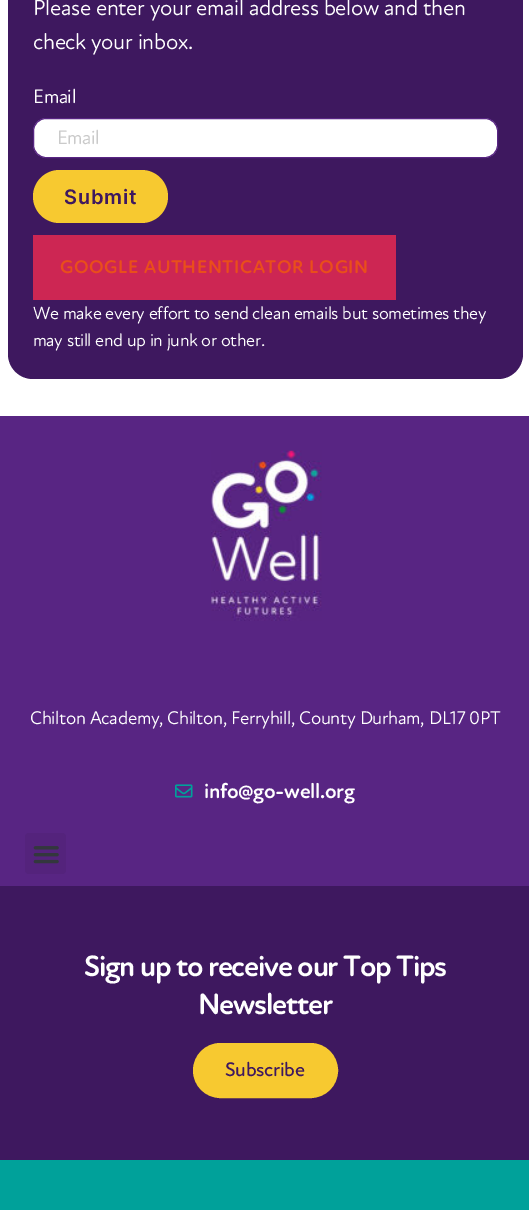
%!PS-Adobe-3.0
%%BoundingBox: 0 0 529 1210
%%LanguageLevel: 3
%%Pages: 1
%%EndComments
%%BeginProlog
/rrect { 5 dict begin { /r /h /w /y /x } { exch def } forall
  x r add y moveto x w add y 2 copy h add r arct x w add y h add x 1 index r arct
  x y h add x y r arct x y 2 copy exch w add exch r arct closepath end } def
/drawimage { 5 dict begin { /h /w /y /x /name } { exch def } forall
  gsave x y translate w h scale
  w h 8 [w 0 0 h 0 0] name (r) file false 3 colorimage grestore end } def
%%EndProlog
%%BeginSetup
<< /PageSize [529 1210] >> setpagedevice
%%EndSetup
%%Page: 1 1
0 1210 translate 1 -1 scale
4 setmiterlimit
1 setgray
0 0 529 1210 rectfill
0.243 0.094 0.373 setrgbcolor
8 -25 515 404 25 rrect fill
1 setgray
33.5 118.5 464 39 12.5 rrect gsave fill grestore
0.345 0.145 0.514 setrgbcolor
stroke
0.969 0.788 0.188 setrgbcolor
33 170 135 53 26.5 rrect fill
0.804 0.149 0.325 setrgbcolor
33 235 363 65 rectfill
0.345 0.145 0.514 setrgbcolor
0 416 529 470 rectfill
(images/1.raw) 211 450 111 171 drawimage
(images/2.raw) 175 784 18 14 drawimage
0.329 0.137 0.486 setrgbcolor
25 833 41 41 4 rrect fill
(images/3.raw) 33 846 26 18 drawimage
0.243 0.094 0.373 setrgbcolor
0 886 529 274 rectfill
0.969 0.788 0.188 setrgbcolor
194.5 1044.5 142 52 26 rrect gsave fill grestore
3 setlinewidth
stroke
0 0.631 0.604 setrgbcolor
0 1160 529 50 rectfill
/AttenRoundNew-Regular [22.5 0 0 -22.5 0 0] selectfont
1 setgray
33 15 moveto -0.35 0 (Please enter your email address below and then) ashow
33 49 moveto -0.35 0 (check your inbox.) ashow
/AttenRoundNew-Regular [20 0 0 -20 0 0] selectfont
33 103 moveto -0.35 0 (Email) ashow
0.792 setgray
57 144 moveto -0.5 0 (Email) ashow
/Inter-SemiBold [20 0 0 -20 0 0] selectfont
0.243 0.094 0.373 setrgbcolor
64 204 moveto 0.75 0 (Submit) ashow
/AttenRoundNew-Bold [18.75 0 0 -18.75 0 0] selectfont
0.914 0.306 0.106 setrgbcolor
60 273 moveto 0.6 0 (GOOGLE AUTHENTICATOR LOGIN) ashow
/AttenRoundNew-Regular [18 0 0 -18 0 0] selectfont
1 setgray
33 319 moveto -0.35 0 (We make every effort to send clean emails but sometimes they) ashow
33 346 moveto -0.35 0 (may still end up in junk or other.) ashow
/AttenRoundNew-Regular [18.75 0 0 -18.75 0 0] selectfont
30 724 moveto -0.35 0 (Chilton Academy, Chilton, Ferryhill, County Durham, DL17 0PT) ashow
/AttenRoundNew-Bold [21.25 0 0 -21.25 0 0] selectfont
204 798 moveto -0.35 0 (info@go-well.org) ashow
/AttenRoundNew-Bold [30 0 0 -30 0 0] selectfont
84 976 moveto -1.25 0 (Sign up to receive our Top Tips) ashow
198 1014 moveto -1.25 0 (Newsletter) ashow
/AttenRoundNew-Medium [20 0 0 -20 0 0] selectfont
0.243 0.094 0.373 setrgbcolor
225 1076 moveto -0.35 0 (Subscribe) ashow
showpage
%%EOF
